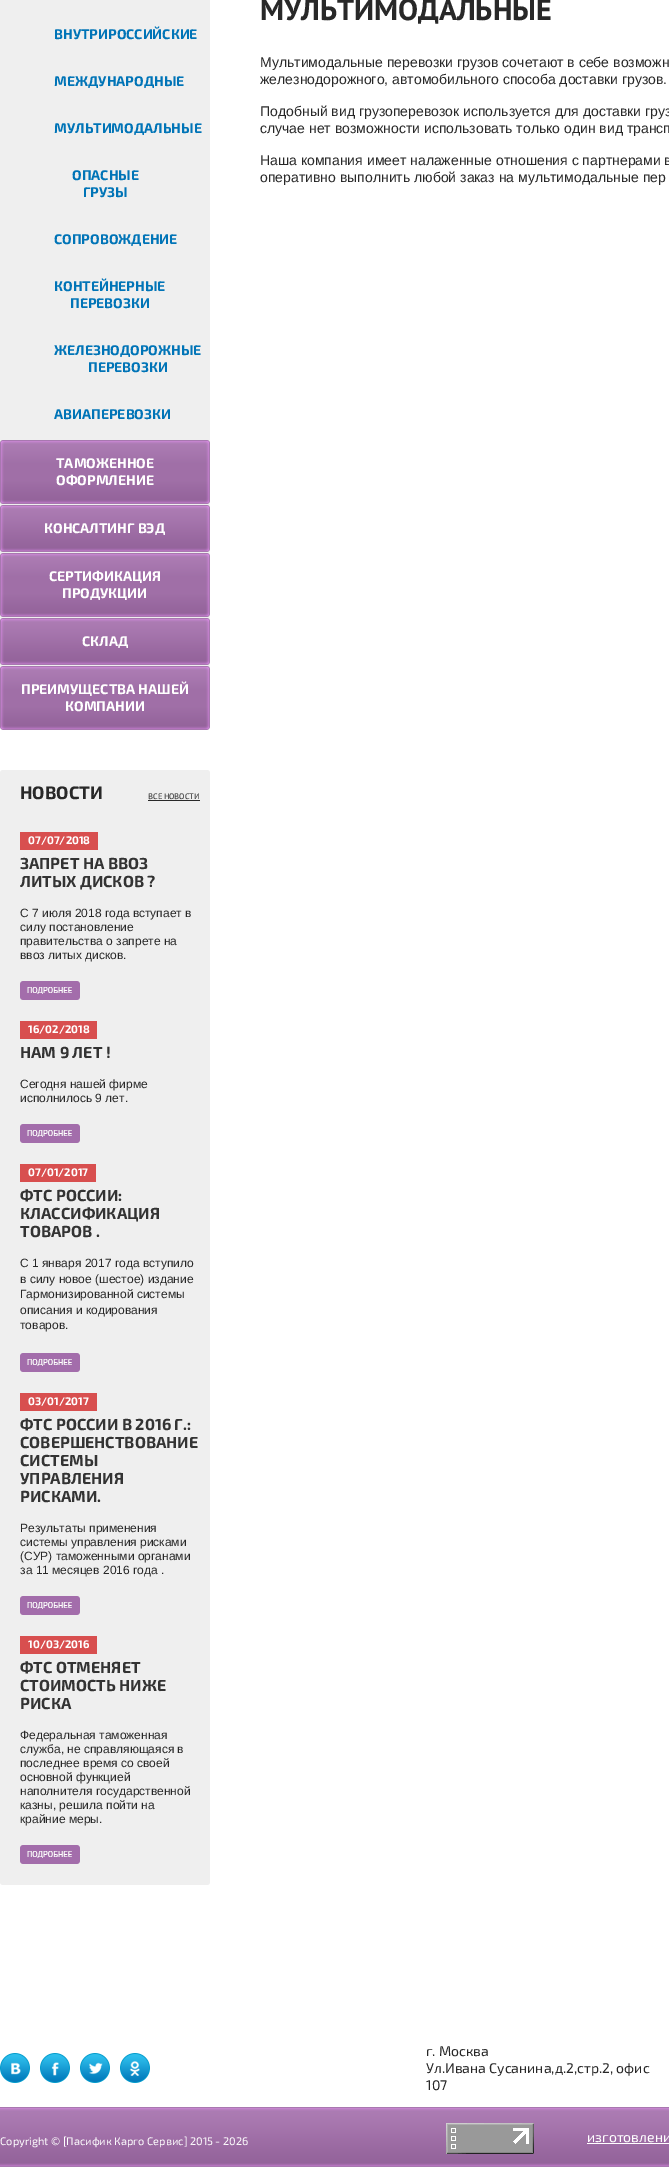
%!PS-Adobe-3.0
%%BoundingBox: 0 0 669 2167
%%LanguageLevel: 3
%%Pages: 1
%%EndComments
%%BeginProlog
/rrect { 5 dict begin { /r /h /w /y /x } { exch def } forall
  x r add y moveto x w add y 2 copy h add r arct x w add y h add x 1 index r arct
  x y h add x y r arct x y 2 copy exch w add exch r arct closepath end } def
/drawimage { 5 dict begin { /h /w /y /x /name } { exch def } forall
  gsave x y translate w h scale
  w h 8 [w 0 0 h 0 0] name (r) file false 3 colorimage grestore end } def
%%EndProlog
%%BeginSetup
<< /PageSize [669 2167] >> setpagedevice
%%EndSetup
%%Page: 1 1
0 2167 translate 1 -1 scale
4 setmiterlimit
1 setgray
0 0 669 2167 rectfill
0.937 setgray
0 -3 210 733 3 rrect fill
(images/1.raw) 0 440 210 23 drawimage
(images/2.raw) 0 481 210 23 drawimage
(images/3.raw) 0 463 210 18 drawimage
(images/1.raw) 0 505 210 23 drawimage
(images/2.raw) 0 529 210 23 drawimage
(images/4.raw) 0 528 210 1 drawimage
(images/1.raw) 0 553 210 23 drawimage
(images/2.raw) 0 594 210 23 drawimage
(images/3.raw) 0 576 210 18 drawimage
(images/1.raw) 0 618 210 23 drawimage
(images/2.raw) 0 642 210 23 drawimage
(images/4.raw) 0 641 210 1 drawimage
(images/1.raw) 0 666 210 23 drawimage
(images/5.raw) 0 707 210 23 drawimage
(images/3.raw) 0 689 210 18 drawimage
0 770 210 1115 3 rrect fill
0.157 setgray
148 800 52 1 rectfill
0.847 0.31 0.31 setrgbcolor
20 832 78 18 rectfill
(images/6.raw) 20 981 60 19 drawimage
20 1021 77 18 rectfill
(images/6.raw) 20 1124 60 19 drawimage
20 1164 76 18 rectfill
(images/6.raw) 20 1353 60 19 drawimage
20 1393 77 18 rectfill
(images/6.raw) 20 1596 60 19 drawimage
20 1636 77 18 rectfill
(images/6.raw) 20 1845 60 19 drawimage
(images/7.raw) 0 2107 669 60 drawimage
(images/8.raw) 0 2053 30 30 drawimage
(images/9.raw) 40 2053 30 30 drawimage
(images/10.raw) 80 2053 30 30 drawimage
(images/11.raw) 120 2053 30 30 drawimage
(images/12.raw) 446 2123 88 31 drawimage
1 setgray
587 2143 82 1 rectfill
/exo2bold-Bold [14 0 0 -14 0 0] selectfont
0 0.455 0.718 setrgbcolor
54 39 moveto (ВНУТРИРОССИЙСКИЕ) show
54 86 moveto (МЕЖДУНАРОДНЫЕ) show
54 133 moveto (МУЛЬТИМОДАЛЬНЫЕ) show
72 180 moveto (ОПАСНЫЕ) show
83 197 moveto (ГРУЗЫ) show
54 244 moveto (СОПРОВОЖДЕНИЕ) show
54 291 moveto (КОНТЕЙНЕРНЫЕ) show
70 308 moveto (ПЕРЕВОЗКИ) show
54 355 moveto (ЖЕЛЕЗНОДОРОЖНЫЕ) show
88 372 moveto (ПЕРЕВОЗКИ) show
54 419 moveto (АВИАПЕРЕВОЗКИ) show
1 setgray
56 468 moveto (ТАМОЖЕННОЕ) show
56 485 moveto (ОФОРМЛЕНИЕ) show
44 533 moveto (КОНСАЛТИНГ ВЭД) show
49 581 moveto (СЕРТИФИКАЦИЯ) show
62 598 moveto (ПРОДУКЦИИ) show
82 646 moveto (СКЛАД) show
21 694 moveto (ПРЕИМУЩЕСТВА НАШЕЙ) show
65 711 moveto (КОМПАНИИ) show
/exo2bold-Bold [18 0 0 -18 0 0] selectfont
0.157 setgray
20 799 moveto (НОВОСТИ) show
/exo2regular-Regular [8 0 0 -8 0 0] selectfont
148 799 moveto (ВСЕ НОВОСТИ) show
/exo2bold-Bold [11 0 0 -11 0 0] selectfont
1 setgray
28 844 moveto (07/07/2018) show
/exo2bold-Bold [16 0 0 -16 0 0] selectfont
0.2 setgray
20 869 moveto (ЗАПРЕТ НА ВВОЗ) show
20 887 moveto (ЛИТЫХ ДИСКОВ ?) show
/LiberationSans-Regular [12 0 0 -12 0 0] selectfont
0.157 setgray
20 917 moveto (С 7 июля 2018 года вступает в) show
20 931 moveto (силу постановление) show
20 945 moveto (правительства о запрете на) show
20 959 moveto (ввоз литых дисков.) show
/exo2bold-Bold [11 0 0 -11 0 0] selectfont
1 setgray
28 1033 moveto (16/02/2018) show
/exo2bold-Bold [16 0 0 -16 0 0] selectfont
0.2 setgray
20 1058 moveto (НАМ 9 ЛЕТ !) show
/LiberationSans-Regular [12 0 0 -12 0 0] selectfont
0.157 setgray
20 1088 moveto (Сегодня нашей фирме) show
20 1102 moveto (исполнилось 9 лет.) show
/exo2bold-Bold [11 0 0 -11 0 0] selectfont
1 setgray
28 1176 moveto (07/01/2017) show
/exo2bold-Bold [16 0 0 -16 0 0] selectfont
0.2 setgray
20 1201 moveto (ФТС РОССИИ:) show
20 1219 moveto (КЛАССИФИКАЦИЯ) show
20 1237 moveto (ТОВАРОВ .) show
/LiberationSans-Regular [12 0 0 -12 0 0] selectfont
0.157 setgray
20 1267 moveto (С 1 января 2017 года вступило) show
20 1283 moveto (в силу новое \(шестое\) издание) show
20 1298 moveto (Гармонизированной системы) show
20 1314 moveto (описания и кодирования) show
20 1329 moveto (товаров.) show
/exo2bold-Bold [11 0 0 -11 0 0] selectfont
1 setgray
28 1405 moveto (03/01/2017) show
/exo2bold-Bold [16 0 0 -16 0 0] selectfont
0.2 setgray
20 1430 moveto (ФТС РОССИИ В 2016 Г.:) show
20 1448 moveto (СОВЕРШЕНСТВОВАНИЕ) show
20 1466 moveto (СИСТЕМЫ) show
20 1484 moveto (УПРАВЛЕНИЯ) show
20 1502 moveto (РИСКАМИ.) show
/LiberationSans-Regular [12 0 0 -12 0 0] selectfont
0.157 setgray
20 1532 moveto (Результаты применения) show
20 1546 moveto (системы управления рисками) show
20 1560 moveto (\(СУР\) таможенными органами) show
20 1574 moveto (за 11 месяцев 2016 года .) show
/exo2bold-Bold [11 0 0 -11 0 0] selectfont
1 setgray
28 1648 moveto (10/03/2016) show
/exo2bold-Bold [16 0 0 -16 0 0] selectfont
0.2 setgray
20 1673 moveto (ФТС ОТМЕНЯЕТ) show
20 1691 moveto (СТОИМОСТЬ НИЖЕ) show
20 1709 moveto (РИСКА) show
/LiberationSans-Regular [12 0 0 -12 0 0] selectfont
0.157 setgray
20 1739 moveto (Федеральная таможенная) show
20 1753 moveto (служба, не справляющаяся в) show
20 1767 moveto (последнее время со своей) show
20 1781 moveto (основной функцией) show
20 1795 moveto (наполнителя государственной) show
20 1809 moveto (казны, решила пойти на) show
20 1823 moveto (крайние меры.) show
/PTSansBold-Bold [30 0 0 -30 0 0] selectfont
260 20 moveto (МУЛЬТИМОДАЛЬНЫЕ) show
/LiberationSans-Regular [14 0 0 -14 0 0] selectfont
260 67 moveto (Мультимодальные перевозки грузов сочетают в себе возможн) show
260 84 moveto (железнодорожного, автомобильного способа доставки грузов.) show
260 116 moveto (Подобный вид грузоперевозок используется для доставки груз) show
260 133 moveto (случае нет возможности использовать только один вид трансп) show
260 165 moveto (Наша компания имеет налаженные отношения с партнерами в) show
260 182 moveto (оперативно выполнить любой заказ на мультимодальные пер) show
/exo2regular-Regular [14 0 0 -14 0 0] selectfont
426 2056 moveto (г. Москва) show
426 2073 moveto (Ул.Ивана Сусанина,д.2,стр.2, офис) show
426 2090 moveto (107) show
/exo2regular-Regular [11 0 0 -11 0 0] selectfont
1 setgray
0 2145 moveto (Copyright © [Пасифик Карго Сервис] 2015 - 2026) show
/exo2regular-Regular [14 0 0 -14 0 0] selectfont
587 2142 moveto (изготовлени) show
showpage
%%EOF
